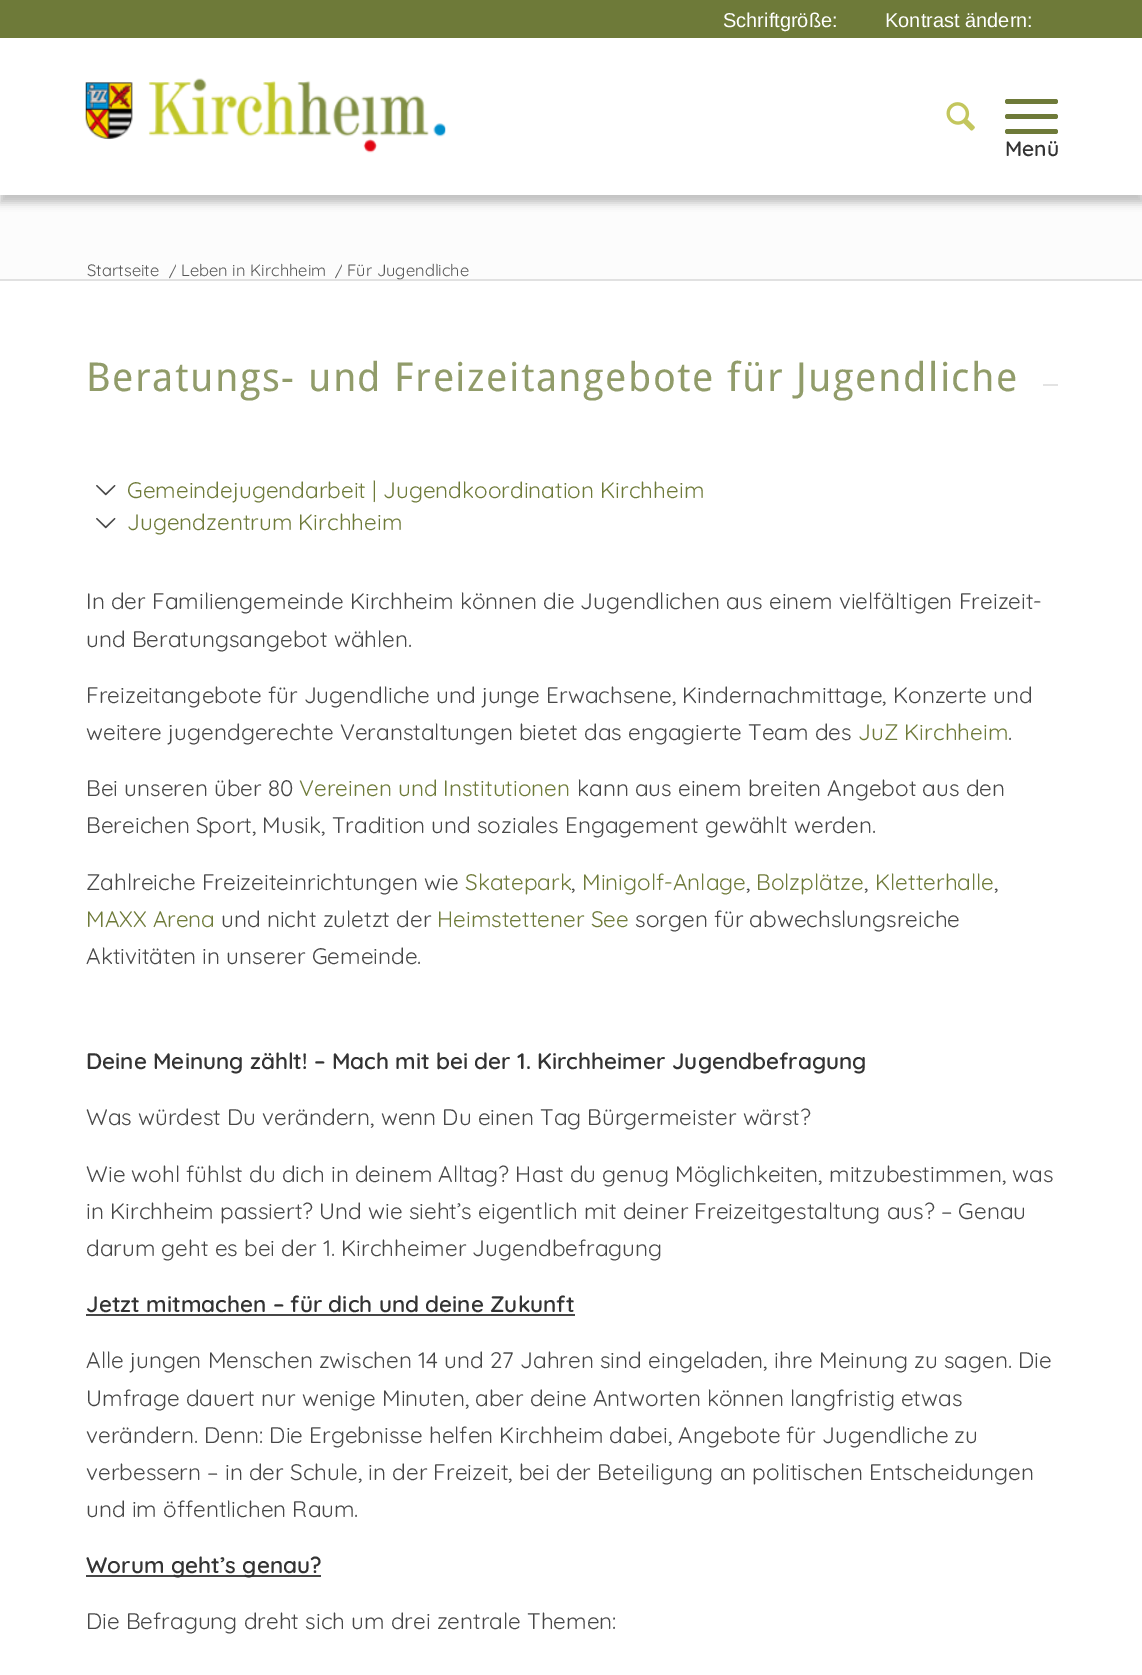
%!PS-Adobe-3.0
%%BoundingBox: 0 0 1142 1675
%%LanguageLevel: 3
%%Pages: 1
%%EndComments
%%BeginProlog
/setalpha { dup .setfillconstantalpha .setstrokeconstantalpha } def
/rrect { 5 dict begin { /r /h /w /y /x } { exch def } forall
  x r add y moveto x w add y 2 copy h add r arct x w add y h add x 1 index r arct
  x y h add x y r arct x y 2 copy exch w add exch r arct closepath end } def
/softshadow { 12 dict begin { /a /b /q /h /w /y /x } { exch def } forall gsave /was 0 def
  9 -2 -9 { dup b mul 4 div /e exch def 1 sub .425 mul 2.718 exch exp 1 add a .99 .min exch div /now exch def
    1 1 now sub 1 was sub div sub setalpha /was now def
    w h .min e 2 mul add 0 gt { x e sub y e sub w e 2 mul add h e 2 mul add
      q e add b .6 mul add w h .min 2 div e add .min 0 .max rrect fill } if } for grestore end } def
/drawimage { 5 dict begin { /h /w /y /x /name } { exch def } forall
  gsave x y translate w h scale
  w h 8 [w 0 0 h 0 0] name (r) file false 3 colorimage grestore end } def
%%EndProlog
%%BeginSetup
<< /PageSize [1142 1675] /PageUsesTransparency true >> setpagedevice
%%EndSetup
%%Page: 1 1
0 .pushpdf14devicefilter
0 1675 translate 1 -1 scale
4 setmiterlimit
1 setgray
0 0 1142 1675 rectfill
0.988 setgray
0 195 1142 84 rectfill
0.102 setgray
0 8 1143 195 0 4 0.25 softshadow
0.431 0.478 0.224 setrgbcolor
0 0 1142 38 rectfill
1 setgray
0 38 1142 157 rectfill
(images/1.raw) 85 78 361 75 drawimage
(images/2.raw) 946 102 29 29 drawimage
0.431 0.478 0.224 setrgbcolor
1005 114 53 5 2.5 rrect fill
1005 99 53 5 2.5 rrect fill
1005 129 53 5 2.5 rrect fill
0.882 setgray
0 279 1142 2 rectfill
0.89 setgray
1043 384 15 2 rectfill
(images/3.raw) 96 484 20 12 drawimage
(images/3.raw) 96 517 20 12 drawimage
0.278 setgray
86 1314 489 2 rectfill
86 1575 235 2 rectfill
/LiberationSans-Regular [20 0 0 -20 0 0] selectfont
1 setgray
723 27 moveto (Schriftgröße:) show
885 27 moveto (Kontrast ändern:) show
/Quicksand-SemiBold [21 0 0 -21 0 0] selectfont
0.2 setgray
1005 156 moveto (Menü) show
/Quicksand-Regular [16.5 0 0 -16.5 0 0] selectfont
0.341 setgray
87 276 moveto (Startseite) show
gsave
164 260 12 22 rectclip
169 276 moveto (/) show
grestore
181 276 moveto (Leben in Kirchheim) show
gsave
330 260 12 22 rectclip
335 276 moveto (/) show
grestore
347 276 moveto (Für Jugendliche) show
/DroidSans-Regular [39.8 0 0 -39.8 0 0] selectfont
0.569 0.612 0.416 setrgbcolor
86 391 moveto 1.5 0 (Beratungs- und Freizeitangebote für Jugendliche) ashow
/Quicksand-Regular [22.5 0 0 -22.5 0 0] selectfont
0.431 0.478 0.224 setrgbcolor
127 498 moveto (Gemeindejugendarbeit | Jugendkoordination Kirchheim) show
127 530 moveto (Jugendzentrum Kirchheim) show
0.278 setgray
86 609 moveto (In der Familiengemeinde Kirchheim können die Jugendlichen aus einem vielfältigen Freizeit-) show
86 647 moveto (und Beratungsangebot wählen.) show
86 703 moveto (Freizeitangebote für Jugendliche und junge Erwachsene, Kindernachmittage, Konzerte und) show
86 740 moveto (weitere jugendgerechte Veranstaltungen bietet das engagierte Team des) show
0.431 0.478 0.224 setrgbcolor
858 740 moveto (JuZ Kirchheim) show
0.278 setgray
1008 740 moveto (.) show
86 796 moveto (Bei unseren über 80) show
0.431 0.478 0.224 setrgbcolor
299 796 moveto (Vereinen und Institutionen) show
0.278 setgray
577 796 moveto (kann aus einem breiten Angebot aus den) show
86 833 moveto (Bereichen Sport, Musik, Tradition und soziales Engagement gewählt werden.) show
86 890 moveto (Zahlreiche Freizeiteinrichtungen wie) show
0.431 0.478 0.224 setrgbcolor
465 890 moveto (Skatepark) show
0.278 setgray
571 890 moveto (,) show
0.431 0.478 0.224 setrgbcolor
582 890 moveto (Minigolf-Anlage) show
0.278 setgray
746 890 moveto (,) show
0.431 0.478 0.224 setrgbcolor
756 890 moveto (Bolzplätze) show
0.278 setgray
864 890 moveto (,) show
0.431 0.478 0.224 setrgbcolor
875 890 moveto (Kletterhalle) show
0.278 setgray
994 890 moveto (,) show
0.431 0.478 0.224 setrgbcolor
86 927 moveto (MAXX Arena) show
0.278 setgray
221 927 moveto (und nicht zuletzt der) show
0.431 0.478 0.224 setrgbcolor
437 927 moveto (Heimstettener See) show
0.278 setgray
635 927 moveto (sorgen für abwechslungsreiche) show
86 964 moveto (Aktivitäten in unserer Gemeinde.) show
/Quicksand-SemiBold [22.5 0 0 -22.5 0 0] selectfont
0.2 setgray
86 1069 moveto (Deine Meinung zählt! – Mach mit bei der 1. Kirchheimer Jugendbefragung) show
/Quicksand-Regular [22.5 0 0 -22.5 0 0] selectfont
0.278 setgray
86 1125 moveto (Was würdest Du verändern, wenn Du einen Tag Bürgermeister wärst?) show
86 1182 moveto (Wie wohl fühlst du dich in deinem Alltag? Hast du genug Möglichkeiten, mitzubestimmen, was) show
86 1219 moveto (in Kirchheim passiert? Und wie sieht’s eigentlich mit deiner Freizeitgestaltung aus? – Genau) show
86 1256 moveto (darum geht es bei der 1. Kirchheimer Jugendbefragung) show
/Quicksand-SemiBold [22.5 0 0 -22.5 0 0] selectfont
0.2 setgray
86 1312 moveto (Jetzt mitmachen – für dich und deine Zukunft) show
/Quicksand-Regular [22.5 0 0 -22.5 0 0] selectfont
0.278 setgray
86 1368 moveto (Alle jungen Menschen zwischen 14 und 27 Jahren sind eingeladen, ihre Meinung zu sagen. Die) show
86 1406 moveto (Umfrage dauert nur wenige Minuten, aber deine Antworten können langfristig etwas) show
86 1443 moveto (verändern. Denn: Die Ergebnisse helfen Kirchheim dabei, Angebote für Jugendliche zu) show
86 1480 moveto (verbessern – in der Schule, in der Freizeit, bei der Beteiligung an politischen Entscheidungen) show
86 1517 moveto (und im öffentlichen Raum.) show
/Quicksand-SemiBold [22.5 0 0 -22.5 0 0] selectfont
0.2 setgray
86 1573 moveto (Worum geht’s genau?) show
/Quicksand-Regular [22.5 0 0 -22.5 0 0] selectfont
0.278 setgray
86 1629 moveto (Die Befragung dreht sich um drei zentrale Themen:) show
.poppdf14devicefilter showpage
%%EOF
